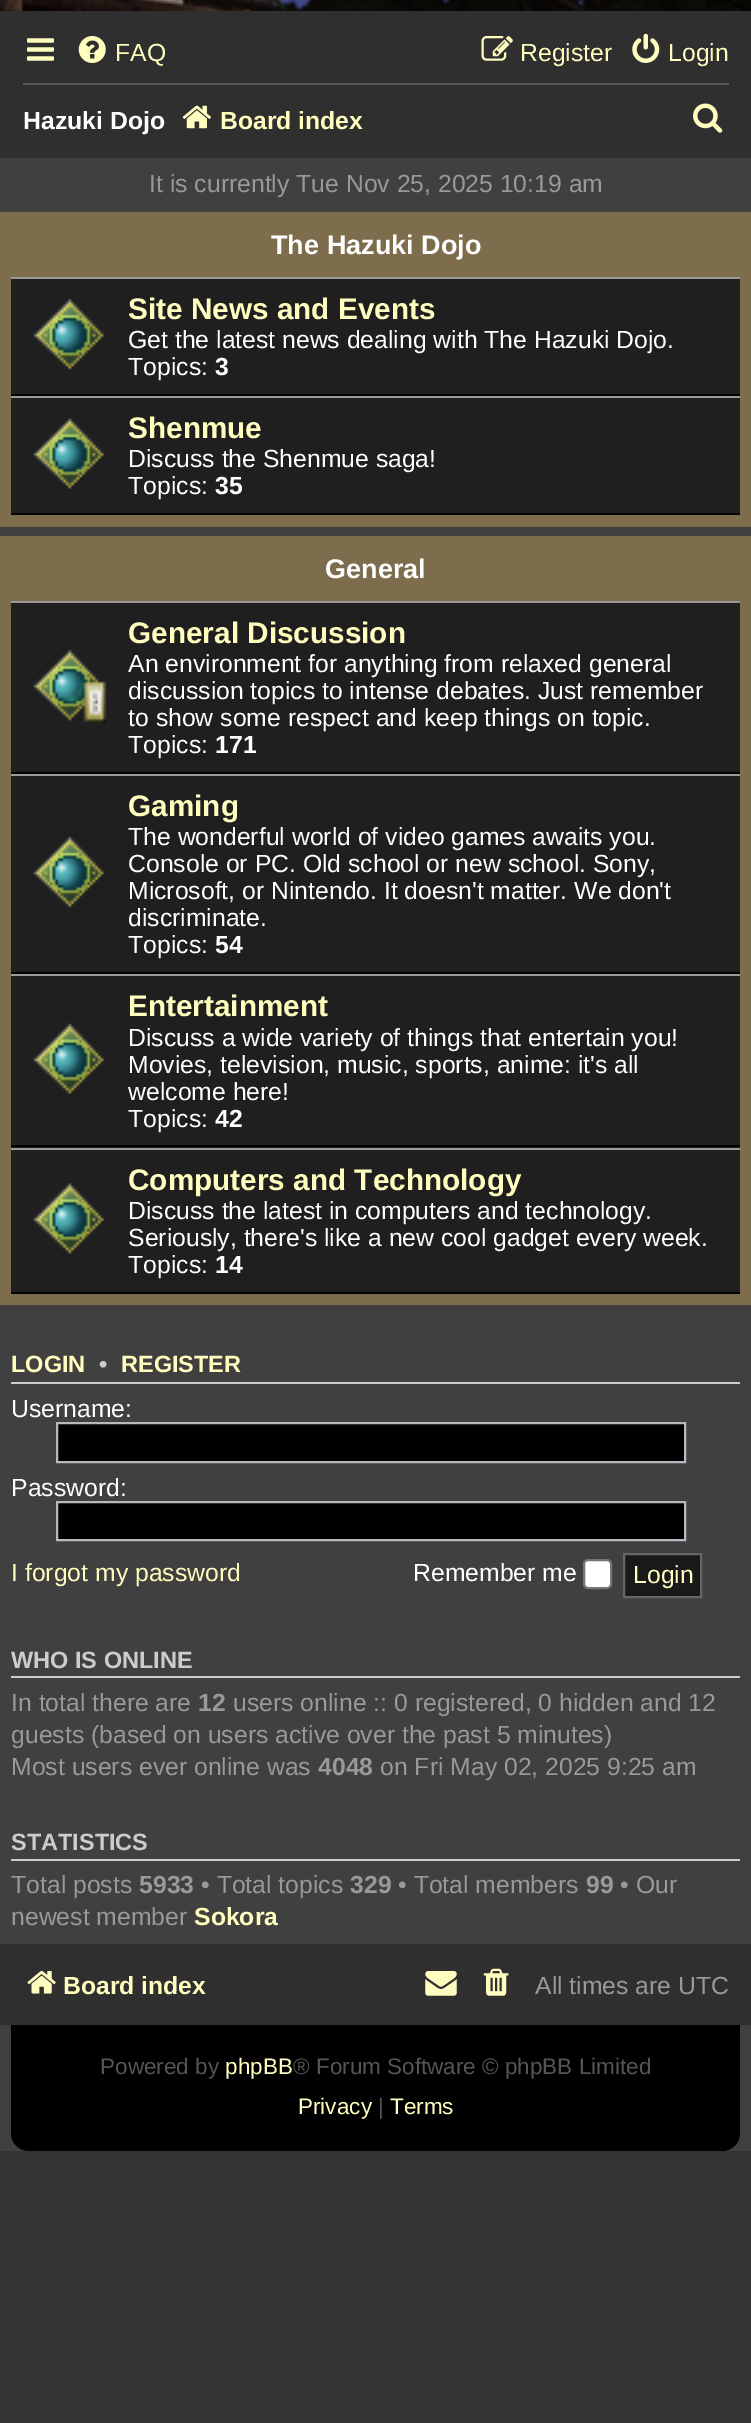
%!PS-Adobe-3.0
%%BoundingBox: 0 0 751 2423
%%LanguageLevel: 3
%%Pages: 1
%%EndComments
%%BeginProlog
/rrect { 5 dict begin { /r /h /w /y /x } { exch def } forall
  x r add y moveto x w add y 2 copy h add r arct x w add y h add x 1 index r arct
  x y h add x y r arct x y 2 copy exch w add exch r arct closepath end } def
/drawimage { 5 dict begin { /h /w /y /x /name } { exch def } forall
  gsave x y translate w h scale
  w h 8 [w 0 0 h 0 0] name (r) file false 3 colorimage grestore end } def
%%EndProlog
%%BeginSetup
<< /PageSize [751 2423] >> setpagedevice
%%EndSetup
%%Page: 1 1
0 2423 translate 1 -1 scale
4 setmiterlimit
0.2 setgray
0 0 751 2423 rectfill
0.251 setgray
0 158 751 1993 rectfill
(images/1.raw) 0 0 751 11 drawimage
0.188 0.184 0.184 setrgbcolor
0 11 751 147 rectfill
(images/2.raw) 27 38 27 23 drawimage
(images/3.raw) 78 36 28 27 drawimage
(images/4.raw) 481 36 32 25 drawimage
(images/5.raw) 632 33 28 30 drawimage
0.333 setgray
23 83 706 2 rectfill
(images/6.raw) 182 105 29 24 drawimage
(images/7.raw) 693 103 30 30 drawimage
0.494 0.427 0.298 setrgbcolor
0 212 751 315 rectfill
0.122 setgray
11 279 729 234 rectfill
0.6 setgray
11 277 729 2 rectfill
0 setgray
11 394 729 2 rectfill
(images/8.raw) 33 299 71 71 drawimage
0.6 setgray
11 396 729 2 rectfill
0 setgray
11 513 729 2 rectfill
(images/9.raw) 33 418 71 71 drawimage
0.494 0.427 0.298 setrgbcolor
0 536 751 769 rectfill
0.122 setgray
11 603 729 689 rectfill
0.6 setgray
11 601 729 2 rectfill
0 setgray
11 772 729 2 rectfill
(images/10.raw) 33 650 73 73 drawimage
0.6 setgray
11 774 729 2 rectfill
0 setgray
11 972 729 2 rectfill
(images/11.raw) 33 837 71 71 drawimage
0.6 setgray
11 974 729 2 rectfill
0 setgray
11 1145 729 2 rectfill
(images/12.raw) 33 1023 71 71 drawimage
0.6 setgray
11 1148 729 2 rectfill
0 setgray
11 1292 729 2 rectfill
(images/9.raw) 33 1183 71 71 drawimage
0.8 setgray
11 1382 729 2 rectfill
0 setgray
newpath 57 1423 moveto 685 1423 lineto 685 1462 lineto 57 1462 lineto closepath gsave fill grestore
0.706 0.729 0.753 setrgbcolor
2 setlinewidth
stroke
0 setgray
newpath 57 1502 moveto 685 1502 lineto 685 1540 lineto 57 1540 lineto closepath gsave fill grestore
0.706 0.729 0.753 setrgbcolor
stroke
1 setgray
584 1560 27 28 4 rrect gsave fill grestore
0.463 setgray
stroke
0.098 setgray
newpath 624 1554 moveto 701 1554 lineto 701 1597 lineto 624 1597 lineto closepath gsave fill grestore
0.4 setgray
stroke
0.8 setgray
11 1676 729 2 rectfill
11 1859 729 2 rectfill
0 setgray
11 1944 729 207 18 rrect fill
0.188 0.184 0.184 setrgbcolor
0 1944 751 81 rectfill
(images/13.raw) 27 1971 29 23 drawimage
(images/14.raw) 425 1971 32 25 drawimage
(images/15.raw) 483 1968 26 28 drawimage
/LiberationSans-Regular [24.75 0 0 -24.75 0 0] selectfont
1 0.996 0.745 setrgbcolor
115 61 moveto (FAQ) show
520 61 moveto (Register) show
668 61 moveto (Login) show
/LiberationSans-Bold [24.75 0 0 -24.75 0 0] selectfont
1 setgray
23 129 moveto (Hazuki Dojo) show
1 0.996 0.745 setrgbcolor
220 129 moveto (Board index) show
/LiberationSans-Regular [24.75 0 0 -24.75 0 0] selectfont
0.6 setgray
149 192 moveto (It is currently Tue Nov 25, 2025 10:19 am) show
/LiberationSans-Bold [27 0 0 -27 0 0] selectfont
1 setgray
271 254 moveto (The Hazuki Dojo) show
/LiberationSans-Bold [29.75 0 0 -29.75 0 0] selectfont
1 0.996 0.745 setrgbcolor
128 319 moveto (Site News and Events) show
/LiberationSans-Regular [24.75 0 0 -24.75 0 0] selectfont
1 setgray
128 348 moveto (Get the latest news dealing with The Hazuki Dojo.) show
128 375 moveto (Topics:) show
/LiberationSans-Bold [24.75 0 0 -24.75 0 0] selectfont
215 375 moveto (3) show
/LiberationSans-Bold [29.75 0 0 -29.75 0 0] selectfont
1 0.996 0.745 setrgbcolor
128 438 moveto (Shenmue) show
/LiberationSans-Regular [24.75 0 0 -24.75 0 0] selectfont
1 setgray
128 467 moveto (Discuss the Shenmue saga!) show
128 494 moveto (Topics:) show
/LiberationSans-Bold [24.75 0 0 -24.75 0 0] selectfont
215 494 moveto (35) show
/LiberationSans-Bold [27 0 0 -27 0 0] selectfont
325 578 moveto (General) show
/LiberationSans-Bold [29.75 0 0 -29.75 0 0] selectfont
1 0.996 0.745 setrgbcolor
128 643 moveto (General Discussion) show
/LiberationSans-Regular [24.75 0 0 -24.75 0 0] selectfont
1 setgray
128 672 moveto (An environment for anything from relaxed general) show
128 699 moveto (discussion topics to intense debates. Just remember) show
128 726 moveto (to show some respect and keep things on topic.) show
128 753 moveto (Topics:) show
/LiberationSans-Bold [24.75 0 0 -24.75 0 0] selectfont
215 753 moveto (171) show
/LiberationSans-Bold [29.75 0 0 -29.75 0 0] selectfont
1 0.996 0.745 setrgbcolor
128 816 moveto (Gaming) show
/LiberationSans-Regular [24.75 0 0 -24.75 0 0] selectfont
1 setgray
128 845 moveto (The wonderful world of video games awaits you.) show
128 872 moveto (Console or PC. Old school or new school. Sony,) show
128 899 moveto (Microsoft, or Nintendo. It doesn't matter. We don't) show
128 926 moveto (discriminate.) show
128 953 moveto (Topics:) show
/LiberationSans-Bold [24.75 0 0 -24.75 0 0] selectfont
215 953 moveto (54) show
/LiberationSans-Bold [29.75 0 0 -29.75 0 0] selectfont
1 0.996 0.745 setrgbcolor
128 1016 moveto (Entertainment) show
/LiberationSans-Regular [24.75 0 0 -24.75 0 0] selectfont
1 setgray
128 1046 moveto (Discuss a wide variety of things that entertain you!) show
128 1073 moveto (Movies, television, music, sports, anime: it's all) show
128 1100 moveto (welcome here!) show
128 1127 moveto (Topics:) show
/LiberationSans-Bold [24.75 0 0 -24.75 0 0] selectfont
215 1127 moveto (42) show
/LiberationSans-Bold [29.75 0 0 -29.75 0 0] selectfont
1 0.996 0.745 setrgbcolor
128 1190 moveto (Computers and Technology) show
/LiberationSans-Regular [24.75 0 0 -24.75 0 0] selectfont
1 setgray
128 1219 moveto (Discuss the latest in computers and technology.) show
128 1246 moveto (Seriously, there's like a new cool gadget every week.) show
128 1273 moveto (Topics:) show
/LiberationSans-Bold [24.75 0 0 -24.75 0 0] selectfont
215 1273 moveto (14) show
/LiberationSans-Bold [23.5 0 0 -23.5 0 0] selectfont
1 0.996 0.745 setrgbcolor
11 1372 moveto (LOGIN) show
0.8 setgray
99 1372 moveto (•) show
1 0.996 0.745 setrgbcolor
121 1372 moveto (REGISTER) show
/LiberationSans-Regular [24.75 0 0 -24.75 0 0] selectfont
1 setgray
11 1417 moveto (Username:) show
11 1496 moveto (Password:) show
1 0.996 0.745 setrgbcolor
11 1581 moveto (I forgot my password) show
1 setgray
413 1581 moveto (Remember me) show
1 0.996 0.745 setrgbcolor
633 1583 moveto (Login) show
/LiberationSans-Bold [23.5 0 0 -23.5 0 0] selectfont
0.8 setgray
11 1668 moveto (WHO IS ONLINE) show
/LiberationSans-Regular [24.75 0 0 -24.75 0 0] selectfont
0.6 setgray
11 1711 moveto (In total there are) show
/LiberationSans-Bold [24.75 0 0 -24.75 0 0] selectfont
198 1711 moveto (12) show
/LiberationSans-Regular [24.75 0 0 -24.75 0 0] selectfont
233 1711 moveto (users online :: 0 registered, 0 hidden and 12) show
11 1743 moveto (guests \(based on users active over the past 5 minutes\)) show
11 1775 moveto (Most users ever online was) show
/LiberationSans-Bold [24.75 0 0 -24.75 0 0] selectfont
318 1775 moveto (4048) show
/LiberationSans-Regular [24.75 0 0 -24.75 0 0] selectfont
380 1775 moveto (on Fri May 02, 2025 9:25 am) show
/LiberationSans-Bold [23.5 0 0 -23.5 0 0] selectfont
0.8 setgray
11 1850 moveto (STATISTICS) show
/LiberationSans-Regular [24.75 0 0 -24.75 0 0] selectfont
0.6 setgray
11 1893 moveto (Total posts) show
/LiberationSans-Bold [24.75 0 0 -24.75 0 0] selectfont
139 1893 moveto (5933) show
/LiberationSans-Regular [24.75 0 0 -24.75 0 0] selectfont
201 1893 moveto (• Total topics) show
/LiberationSans-Bold [24.75 0 0 -24.75 0 0] selectfont
350 1893 moveto (329) show
/LiberationSans-Regular [24.75 0 0 -24.75 0 0] selectfont
398 1893 moveto (• Total members) show
/LiberationSans-Bold [24.75 0 0 -24.75 0 0] selectfont
586 1893 moveto (99) show
/LiberationSans-Regular [24.75 0 0 -24.75 0 0] selectfont
620 1893 moveto (• Our) show
11 1925 moveto (newest member) show
/LiberationSans-Bold [24.75 0 0 -24.75 0 0] selectfont
1 0.996 0.745 setrgbcolor
194 1925 moveto (Sokora) show
63 1994 moveto (Board index) show
/LiberationSans-Regular [24.75 0 0 -24.75 0 0] selectfont
0.6 setgray
535 1994 moveto (All times are UTC) show
/LiberationSans-Regular [22.5 0 0 -22.5 0 0] selectfont
0.333 setgray
100 2074 moveto (Powered by) show
1 0.996 0.745 setrgbcolor
225 2074 moveto (phpBB) show
0.333 setgray
293 2074 moveto (® Forum Software © phpBB Limited) show
1 0.996 0.745 setrgbcolor
298 2114 moveto (Privacy) show
0.333 setgray
378 2114 moveto (|) show
1 0.996 0.745 setrgbcolor
390 2114 moveto (Terms) show
showpage
%%EOF
